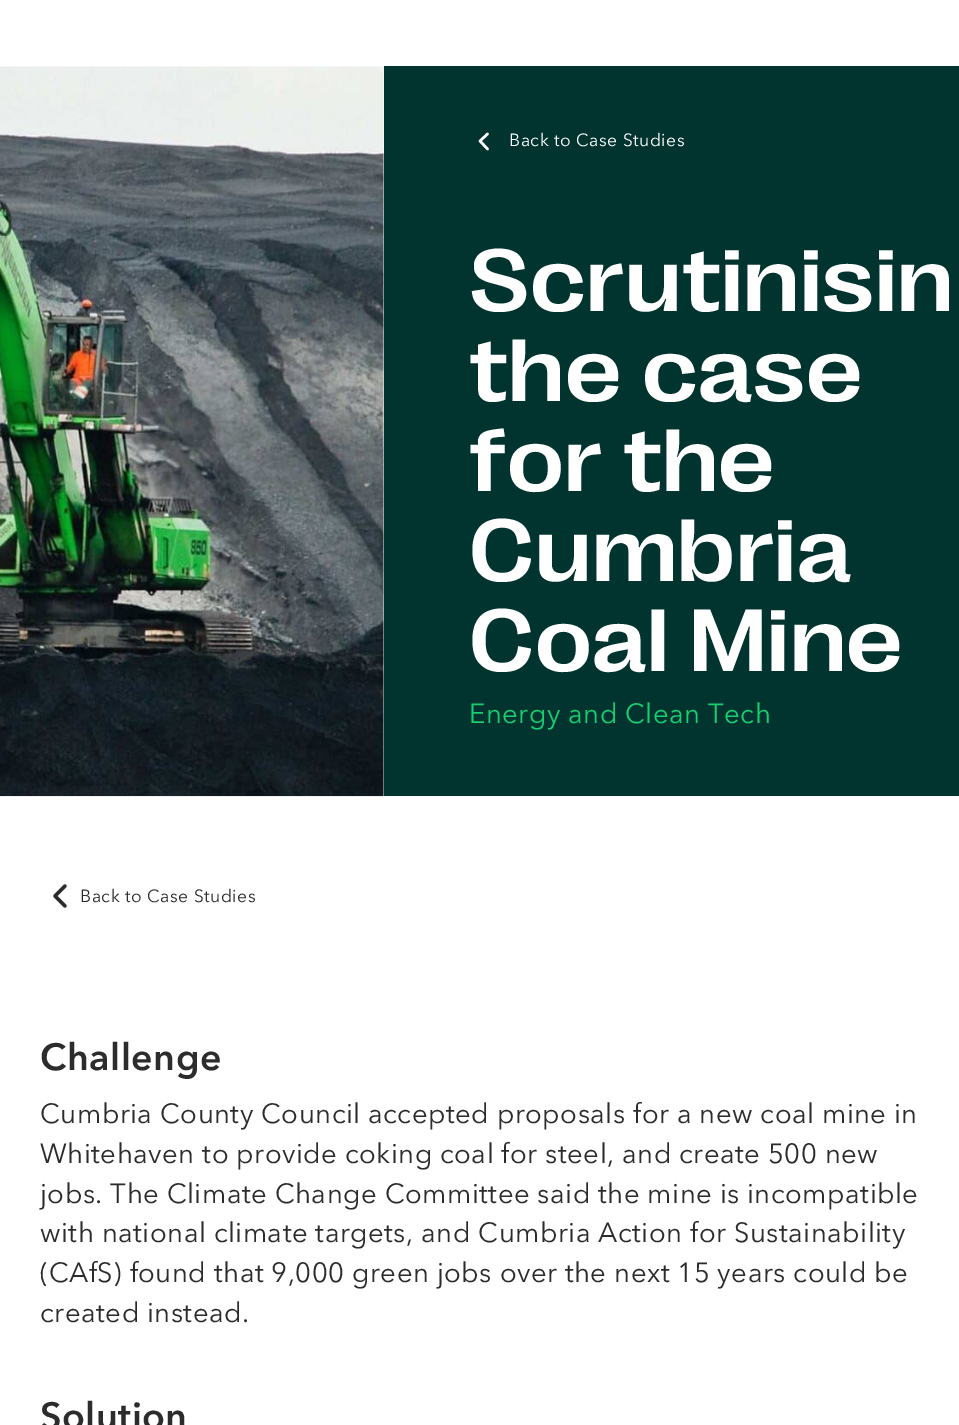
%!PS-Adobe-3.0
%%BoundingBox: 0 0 959 1425
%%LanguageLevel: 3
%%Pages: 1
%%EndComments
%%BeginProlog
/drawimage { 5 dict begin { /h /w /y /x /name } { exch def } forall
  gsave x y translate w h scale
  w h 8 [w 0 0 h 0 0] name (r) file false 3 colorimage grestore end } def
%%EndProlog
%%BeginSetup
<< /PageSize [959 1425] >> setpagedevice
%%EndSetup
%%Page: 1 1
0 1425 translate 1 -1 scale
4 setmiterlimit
1 setgray
0 0 959 1425 rectfill
(images/1.raw) 0 66 384 731 drawimage
0.004 0.204 0.184 setrgbcolor
384 66 575 730 rectfill
1 setgray
2.5 setlinewidth
1 setlinecap
1 setlinejoin
newpath 487.5 149 moveto 480 141 lineto 487.5 134 lineto stroke
0.173 setgray
3.3 setlinewidth
newpath 65 906 moveto 55 896 lineto 65 886 lineto stroke
/AvenirNext-Regular [17.5 0 0 -17.5 0 0] selectfont
1 setgray
509 146 moveto 0.5 0 (Back to Case Studies) ashow
/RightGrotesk-Medium [90 0 0 -90 0 0] selectfont
469 311 moveto 0.5 0 (Scrutinisin) ashow
469 401 moveto 0.5 0 (the case) ashow
469 491 moveto 0.5 0 (for the) ashow
469 581 moveto 0.5 0 (Cumbria) ashow
469 671 moveto 0.5 0 (Coal Mine) ashow
/AvenirNext-Regular [27.5 0 0 -27.5 0 0] selectfont
0.09 0.808 0.447 setrgbcolor
469 723 moveto 0.5 0 (Energy and Clean Tech) ashow
/AvenirNext-Regular [17.5 0 0 -17.5 0 0] selectfont
0.173 setgray
80 902 moveto 0.5 0 (Back to Case Studies) ashow
/AvenirNext-SemiBold [37.5 0 0 -37.5 0 0] selectfont
40 1070 moveto 0.5 0 (Challenge) ashow
/AvenirNext-Regular [27.5 0 0 -27.5 0 0] selectfont
40 1123 moveto 0.5 0 (Cumbria County Council accepted proposals for a new coal mine in) ashow
40 1163 moveto 0.5 0 (Whitehaven to provide coking coal for steel, and create 500 new) ashow
40 1203 moveto 0.5 0 (jobs. The Climate Change Committee said the mine is incompatible) ashow
40 1242 moveto 0.5 0 (with national climate targets, and Cumbria Action for Sustainability) ashow
40 1282 moveto 0.5 0 (\(CAfS\) found that 9,000 green jobs over the next 15 years could be) ashow
40 1322 moveto 0.5 0 (created instead.) ashow
/AvenirNext-SemiBold [37.5 0 0 -37.5 0 0] selectfont
40 1429 moveto 0.5 0 (Solution) ashow
showpage
%%EOF
